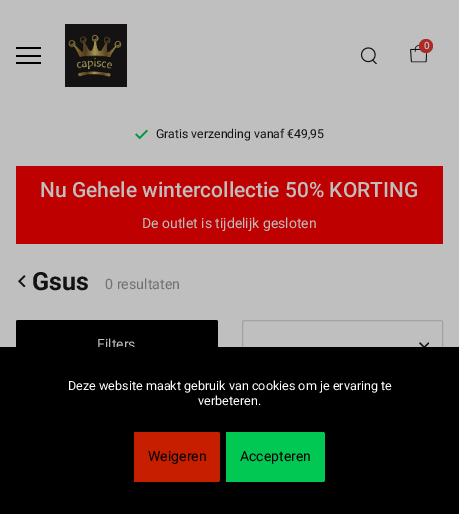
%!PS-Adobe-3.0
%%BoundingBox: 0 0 459 514
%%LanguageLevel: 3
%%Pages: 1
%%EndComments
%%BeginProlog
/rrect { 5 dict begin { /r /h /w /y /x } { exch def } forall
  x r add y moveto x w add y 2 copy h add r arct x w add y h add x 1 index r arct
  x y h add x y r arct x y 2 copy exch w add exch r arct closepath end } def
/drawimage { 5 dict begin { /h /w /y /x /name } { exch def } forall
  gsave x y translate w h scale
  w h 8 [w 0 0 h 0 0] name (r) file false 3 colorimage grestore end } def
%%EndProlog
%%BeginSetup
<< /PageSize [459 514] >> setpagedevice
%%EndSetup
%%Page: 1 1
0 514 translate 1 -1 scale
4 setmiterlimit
0.749 setgray
0 0 459 514 rectfill
(images/1.raw) 65 24 62 63 drawimage
(images/2.raw) 410 45 17 18 drawimage
0.675 0.169 0.157 setrgbcolor
newpath 426 46 7 0 360 arc closepath fill
(images/3.raw) 360 47 17 17 drawimage
0 setgray
16 47 25 2 rectfill
16 55 25 2 rectfill
16 62 25 2 rectfill
(images/4.raw) 135 129 13 11 drawimage
0.749 0 0 setrgbcolor
16 166 427 78 rectfill
(images/5.raw) 18 275 8 12 drawimage
0 setgray
16 320 202 48 2 rrect fill
0.639 setgray
242.5 320.5 200 51 1.5 rrect stroke
(images/6.raw) 419 342 10 5 drawimage
/Roboto-Medium [10 0 0 -10 0 0] selectfont
0.749 setgray
424 49 moveto (0) show
/Roboto-Regular [12.25 0 0 -12.25 0 0] selectfont
0.078 0.067 0.078 setrgbcolor
156 138 moveto (Gratis verzending vanaf €49,95) show
/Roboto-Medium [21 0 0 -21 0 0] selectfont
0.749 setgray
40 197 moveto (Nu Gehele wintercollectie 50% KORTING) show
/Roboto-Regular [14 0 0 -14 0 0] selectfont
142 228 moveto (De outlet is tijdelijk gesloten) show
/Roboto-Bold [25 0 0 -25 0 0] selectfont
0.078 0.067 0.078 setrgbcolor
32 290 moveto (Gsus) show
/Roboto-Regular [14.25 0 0 -14.25 0 0] selectfont
0.443 setgray
105 289 moveto (0 resultaten) show
/Roboto-Regular [14 0 0 -14 0 0] selectfont
0.749 setgray
97 349 moveto (Filters) show
0 setgray
0 347 459 167 rectfill
/Roboto-Regular [12.6 0 0 -12.6 0 0] selectfont
1 setgray
68 390 moveto (Deze website maakt gebruik van cookies om je ervaring te) show
198 405 moveto (verbeteren.) show
0.784 0.118 0 setrgbcolor
newpath 134 432 moveto 218 432 lineto 219 432 220 433 220 434 curveto 220 480 lineto 220 481 219 482 218 482 curveto 134 482 lineto closepath fill
/Roboto-Regular [14 0 0 -14 0 0] selectfont
0 setgray
148 461 moveto (Weigeren) show
0 0.784 0.325 setrgbcolor
newpath 226 432 moveto 323 432 lineto 324 432 325 433 325 434 curveto 325 480 lineto 325 481 324 482 323 482 curveto 226 482 lineto closepath fill
0 setgray
240 461 moveto (Accepteren) show
showpage
%%EOF
